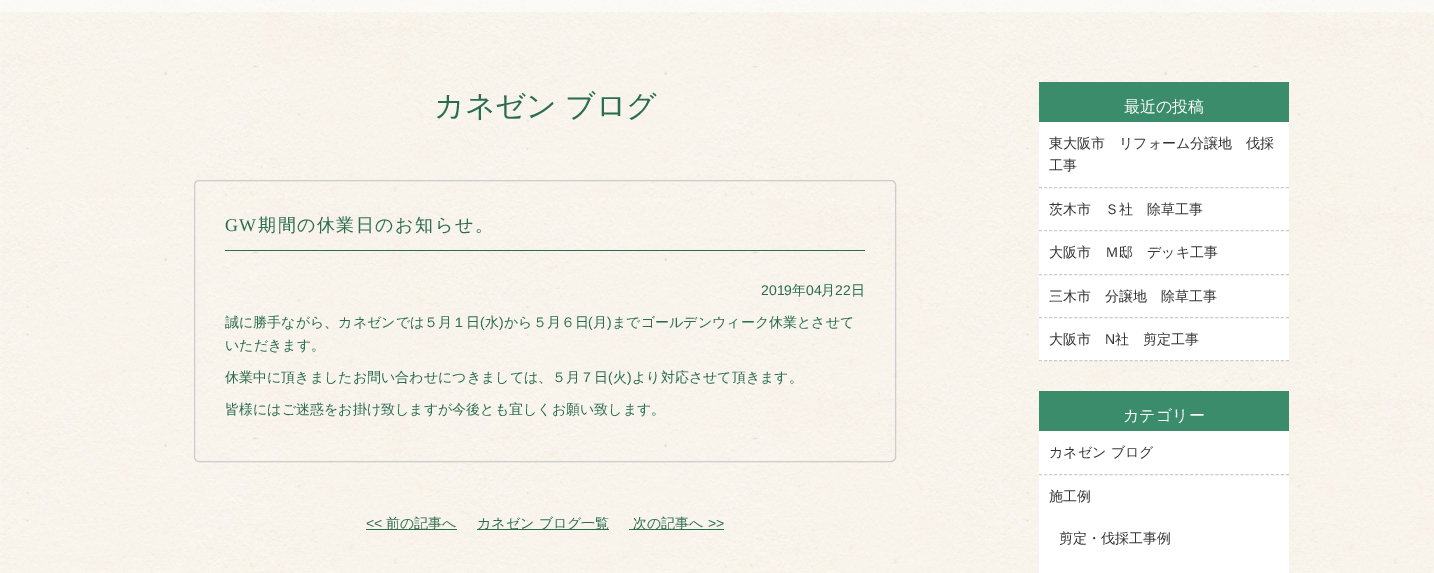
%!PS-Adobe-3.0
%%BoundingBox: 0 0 1434 573
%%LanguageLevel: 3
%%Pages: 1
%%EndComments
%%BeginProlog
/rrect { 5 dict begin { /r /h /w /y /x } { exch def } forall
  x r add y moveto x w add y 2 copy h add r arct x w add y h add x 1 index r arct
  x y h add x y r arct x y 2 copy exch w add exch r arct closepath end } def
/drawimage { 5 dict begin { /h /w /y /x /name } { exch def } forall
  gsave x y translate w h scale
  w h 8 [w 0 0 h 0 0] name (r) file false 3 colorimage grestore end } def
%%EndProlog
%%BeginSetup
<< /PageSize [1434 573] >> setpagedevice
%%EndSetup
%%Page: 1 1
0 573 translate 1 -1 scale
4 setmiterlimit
1 setgray
0 0 1434 573 rectfill
(images/1.raw) 0 0 1434 12 drawimage
(images/2.raw) 0 12 1434 561 drawimage
0.8 setgray
194.5 180.5 701 281 4.5 rrect stroke
0.165 0.424 0.314 setrgbcolor
225 250 640 1 rectfill
366 529 91 1 rectfill
477 529 132 1 rectfill
629 529 95 1 rectfill
0.231 0.549 0.416 setrgbcolor
1039 82 250 40 rectfill
1 setgray
1039 122 250 239 rectfill
0.8 setgray
[3 2.04] 0 setdash
newpath 1039 187.5 moveto 1289 187.5 lineto stroke
newpath 1039 230.5 moveto 1289 230.5 lineto stroke
newpath 1039 274.5 moveto 1289 274.5 lineto stroke
newpath 1039 317.5 moveto 1289 317.5 lineto stroke
newpath 1039 360.5 moveto 1289 360.5 lineto stroke
0.231 0.549 0.416 setrgbcolor
1039 391 250 40 rectfill
1 setgray
1039 431 250 142 rectfill
0.8 setgray
newpath 1039 474.5 moveto 1289 474.5 lineto stroke
/WenQuanYiZenHei-Medium [30 0 0 -30 0 0] selectfont
0.165 0.424 0.314 setrgbcolor
434 116 moveto -1 0 32 (カネゼン ブログ) widthshow
/LiberationSerif-Regular [18 0 0 -18 0 0] selectfont
225 231 moveto 1.5 0 (GW) ashow
/WenQuanYiZenHei-Medium [18 0 0 -18 0 0] selectfont
258 231 moveto 1.5 0 (期間の休業日のお知らせ。) ashow
/LiberationSans-Regular [14 0 0 -14 0 0] selectfont
761 295 moveto (2019) show
/WenQuanYiZenHei-Medium [14 0 0 -14 0 0] selectfont
792 295 moveto (年) show
/LiberationSans-Regular [14 0 0 -14 0 0] selectfont
806 295 moveto (04) show
/WenQuanYiZenHei-Medium [14 0 0 -14 0 0] selectfont
821 295 moveto (月) show
/LiberationSans-Regular [14 0 0 -14 0 0] selectfont
835 295 moveto (22) show
/WenQuanYiZenHei-Medium [14 0 0 -14 0 0] selectfont
851 295 moveto (日) show
225 327 moveto (誠に勝手ながら、カネゼンでは５月１日) show
/LiberationSans-Regular [14 0 0 -14 0 0] selectfont
480 327 moveto (\() show
/WenQuanYiZenHei-Medium [14 0 0 -14 0 0] selectfont
485 327 moveto (水) show
/LiberationSans-Regular [14 0 0 -14 0 0] selectfont
499 327 moveto (\)) show
/WenQuanYiZenHei-Medium [14 0 0 -14 0 0] selectfont
504 327 moveto (から５月６日) show
/LiberationSans-Regular [14 0 0 -14 0 0] selectfont
588 327 moveto (\() show
/WenQuanYiZenHei-Medium [14 0 0 -14 0 0] selectfont
593 327 moveto (月) show
/LiberationSans-Regular [14 0 0 -14 0 0] selectfont
607 327 moveto (\)) show
/WenQuanYiZenHei-Medium [14 0 0 -14 0 0] selectfont
612 327 moveto (までゴールデンウィーク休業とさせて) show
225 350 moveto (いただきます。) show
225 382 moveto (休業中に頂きましたお問い合わせにつきましては、５月７日) show
/LiberationSans-Regular [14 0 0 -14 0 0] selectfont
608 382 moveto (\() show
/WenQuanYiZenHei-Medium [14 0 0 -14 0 0] selectfont
613 382 moveto (火) show
/LiberationSans-Regular [14 0 0 -14 0 0] selectfont
627 382 moveto (\)) show
/WenQuanYiZenHei-Medium [14 0 0 -14 0 0] selectfont
632 382 moveto (より対応させて頂きます。) show
225 414 moveto (皆様にはご迷惑をお掛け致しますが今後とも宜しくお願い致します。) show
/LiberationSans-Regular [14 0 0 -14 0 0] selectfont
366 528 moveto (<<) show
/WenQuanYiZenHei-Medium [14 0 0 -14 0 0] selectfont
386 528 moveto (前の記事へ) show
477 528 moveto (カネゼン ブログ一覧) show
633 528 moveto (次の記事へ) show
/LiberationSans-Regular [14 0 0 -14 0 0] selectfont
708 528 moveto (>>) show
/WenQuanYiZenHei-Medium [16 0 0 -16 0 0] selectfont
1 setgray
1124 112 moveto (最近の投稿) show
/WenQuanYiZenHei-Medium [14 0 0 -14 0 0] selectfont
0.2 setgray
1049 148 moveto (東大阪市　リフォーム分譲地　伐採) show
1049 170 moveto (工事) show
1049 214 moveto (茨木市　Ｓ社　除草工事) show
1049 257 moveto (大阪市　Ｍ邸　デッキ工事) show
1049 301 moveto (三木市　分譲地　除草工事) show
1049 344 moveto (大阪市) show
/LiberationSans-Regular [14 0 0 -14 0 0] selectfont
1105 344 moveto (N) show
/WenQuanYiZenHei-Medium [14 0 0 -14 0 0] selectfont
1115 344 moveto (社　剪定工事) show
/WenQuanYiZenHei-Medium [16 0 0 -16 0 0] selectfont
1 setgray
1123 421 moveto (カテゴリー) show
/WenQuanYiZenHei-Medium [14 0 0 -14 0 0] selectfont
0.2 setgray
1049 457 moveto (カネゼン ブログ) show
1049 501 moveto (施工例) show
1059 543 moveto (剪定・伐採工事例) show
showpage
%%EOF
